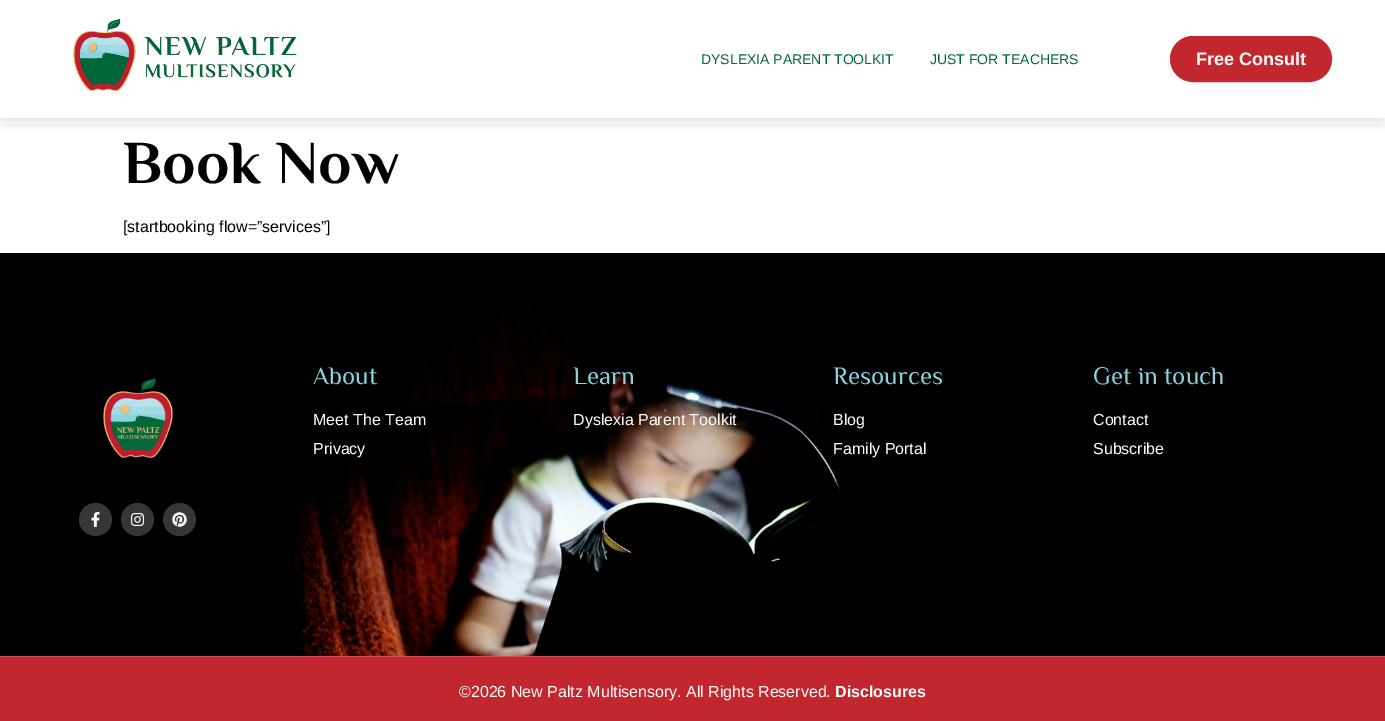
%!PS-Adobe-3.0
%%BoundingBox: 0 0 1385 721
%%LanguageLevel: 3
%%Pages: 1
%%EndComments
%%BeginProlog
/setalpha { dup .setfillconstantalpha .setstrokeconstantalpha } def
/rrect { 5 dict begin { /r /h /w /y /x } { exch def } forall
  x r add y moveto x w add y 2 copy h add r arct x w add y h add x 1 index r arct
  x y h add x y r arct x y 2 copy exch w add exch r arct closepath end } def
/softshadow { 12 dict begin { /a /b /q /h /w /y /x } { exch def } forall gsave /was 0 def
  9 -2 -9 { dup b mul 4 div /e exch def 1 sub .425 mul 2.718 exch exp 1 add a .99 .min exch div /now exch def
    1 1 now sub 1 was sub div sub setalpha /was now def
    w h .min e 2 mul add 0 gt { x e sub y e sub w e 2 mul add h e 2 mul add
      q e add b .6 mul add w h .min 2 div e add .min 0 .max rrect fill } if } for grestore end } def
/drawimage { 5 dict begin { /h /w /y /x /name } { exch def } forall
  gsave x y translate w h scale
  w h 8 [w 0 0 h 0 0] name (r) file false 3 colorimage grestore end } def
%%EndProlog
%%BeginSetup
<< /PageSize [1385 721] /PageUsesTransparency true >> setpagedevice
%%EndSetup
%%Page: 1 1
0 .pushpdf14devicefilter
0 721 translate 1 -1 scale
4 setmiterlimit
1 setgray
0 0 1385 721 rectfill
gsave
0 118 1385 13 rectclip
0 setgray
0 0 1385 118 0 12 0.15 softshadow
grestore
(images/1.raw) 73 19 224 72 drawimage
0.757 0.153 0.176 setrgbcolor
1171 37 160 44 22 rrect gsave fill grestore
2 setlinewidth
stroke
(images/2.raw) 0 253 1385 403 drawimage
(images/3.raw) 103 378 70 80 drawimage
0.212 setgray
newpath 95.5 519.5 16.5 0 360 arc closepath fill
(images/4.raw) 91 512 9 15 drawimage
newpath 137.5 519.5 16.5 0 360 arc closepath fill
(images/5.raw) 131 513 14 13 drawimage
newpath 179.5 519.5 16.5 0 360 arc closepath fill
(images/6.raw) 172 512 15 15 drawimage
0.757 0.153 0.176 setrgbcolor
0 657 1385 64 rectfill
0.804 0.314 0.333 setrgbcolor
0 656 1385 1 rectfill
/LiberationSans-Regular [14 0 0 -14 0 0] selectfont
0 0.408 0.216 setrgbcolor
701 64 moveto (DYSLEXIA PARENT TOOLKIT) show
930 64 moveto (JUST FOR TEACHERS) show
/LiberationSans-Bold [18 0 0 -18 0 0] selectfont
1 setgray
1196 65 moveto (Free Consult) show
/Philosopher-Bold [61 0 0 -61 0 0] selectfont
0 setgray
123 183 moveto (Book Now) show
/LiberationSans-Regular [16 0 0 -16 0 0] selectfont
123 232 moveto ([startbooking flow=”services”]) show
/Philosopher-Regular [25 0 0 -25 0 0] selectfont
0.541 0.827 0.867 setrgbcolor
313 384 moveto (About) show
/LiberationSans-Regular [16 0 0 -16 0 0] selectfont
1 setgray
313 425 moveto (Meet The Team) show
313 454 moveto (Privacy) show
/Philosopher-Regular [25 0 0 -25 0 0] selectfont
0.541 0.827 0.867 setrgbcolor
573 384 moveto (Learn) show
/LiberationSans-Regular [16 0 0 -16 0 0] selectfont
1 setgray
573 425 moveto (Dyslexia Parent Toolkit) show
/Philosopher-Regular [25 0 0 -25 0 0] selectfont
0.541 0.827 0.867 setrgbcolor
833 384 moveto (Resources) show
/LiberationSans-Regular [16 0 0 -16 0 0] selectfont
1 setgray
833 425 moveto (Blog) show
833 454 moveto (Family Portal) show
/Philosopher-Regular [25 0 0 -25 0 0] selectfont
0.541 0.827 0.867 setrgbcolor
1093 384 moveto (Get in touch) show
/LiberationSans-Regular [16 0 0 -16 0 0] selectfont
1 setgray
1093 425 moveto (Contact) show
1093 454 moveto (Subscribe) show
459 697 moveto (©2026 New Paltz Multisensory. All Rights Reserved.) show
/LiberationSans-Bold [16 0 0 -16 0 0] selectfont
835 697 moveto (Disclosures) show
.poppdf14devicefilter showpage
%%EOF
